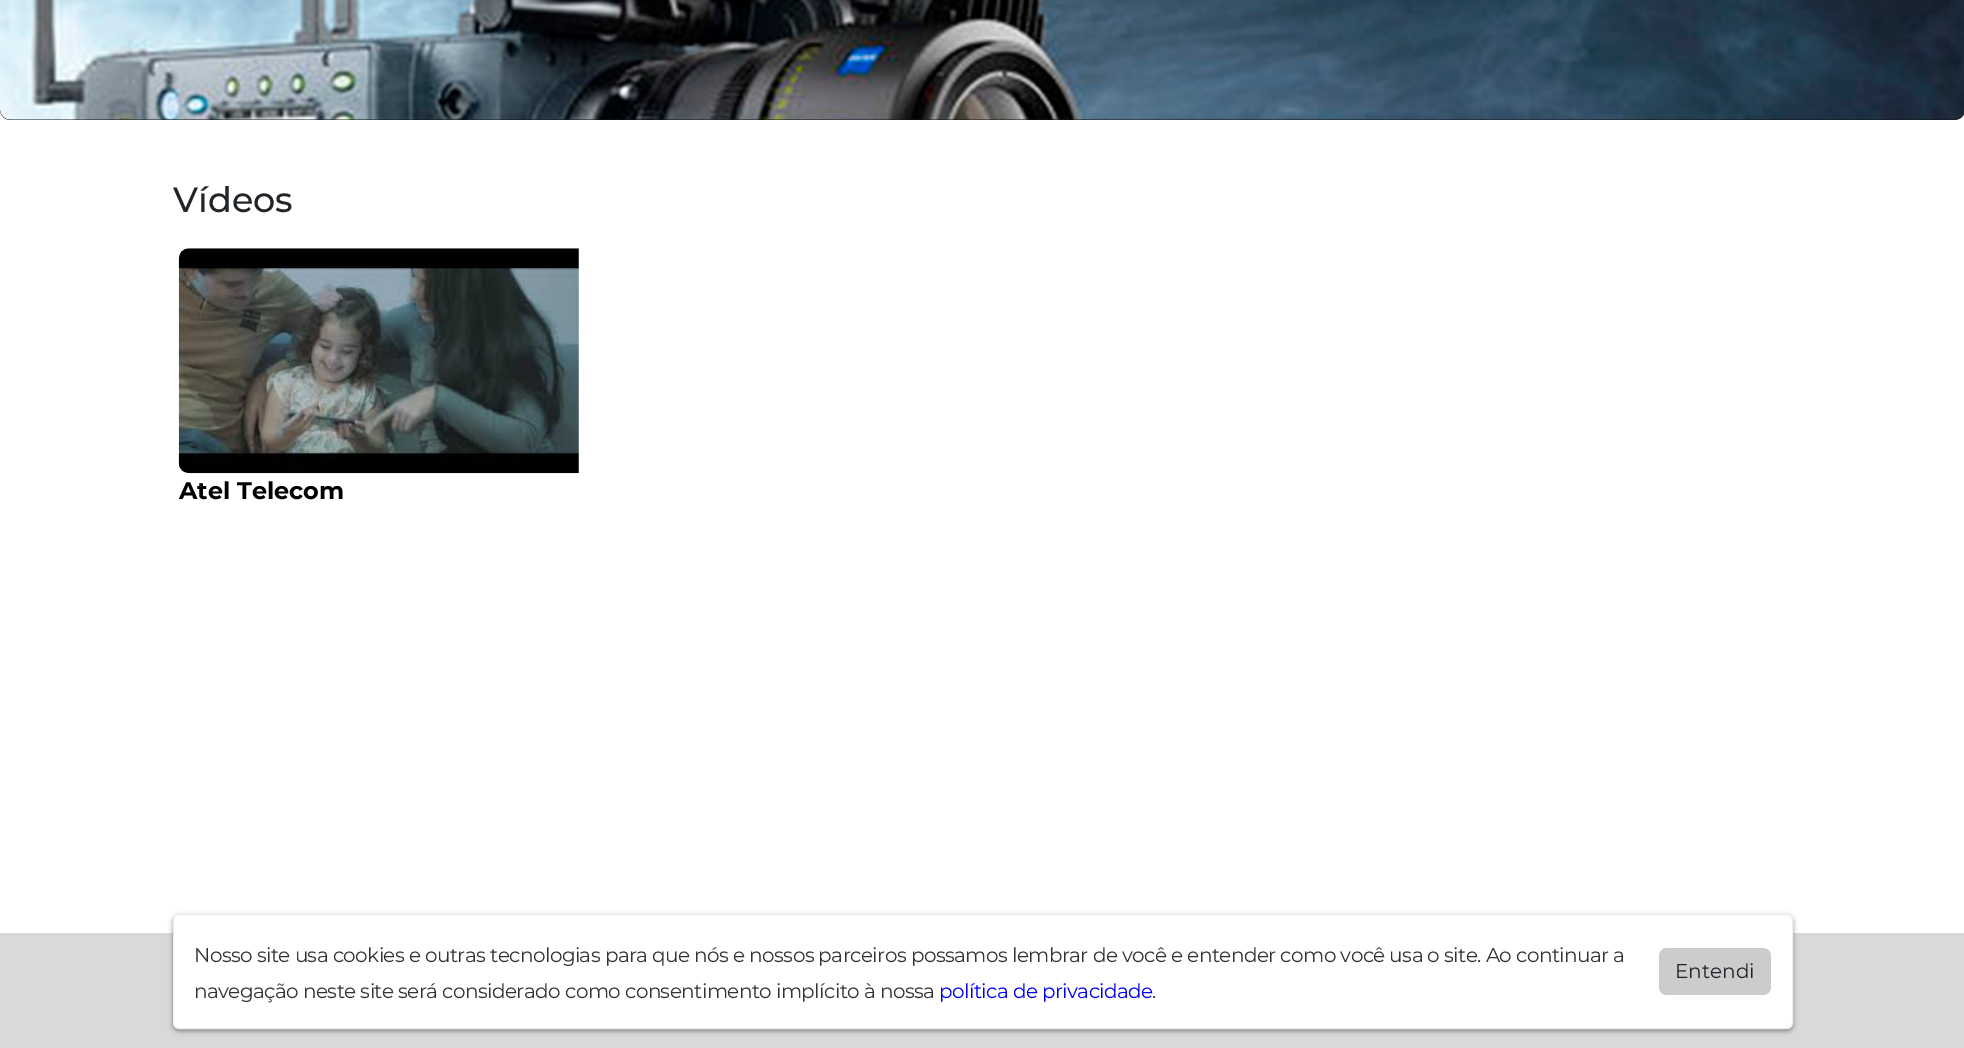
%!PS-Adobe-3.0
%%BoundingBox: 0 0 1964 1048
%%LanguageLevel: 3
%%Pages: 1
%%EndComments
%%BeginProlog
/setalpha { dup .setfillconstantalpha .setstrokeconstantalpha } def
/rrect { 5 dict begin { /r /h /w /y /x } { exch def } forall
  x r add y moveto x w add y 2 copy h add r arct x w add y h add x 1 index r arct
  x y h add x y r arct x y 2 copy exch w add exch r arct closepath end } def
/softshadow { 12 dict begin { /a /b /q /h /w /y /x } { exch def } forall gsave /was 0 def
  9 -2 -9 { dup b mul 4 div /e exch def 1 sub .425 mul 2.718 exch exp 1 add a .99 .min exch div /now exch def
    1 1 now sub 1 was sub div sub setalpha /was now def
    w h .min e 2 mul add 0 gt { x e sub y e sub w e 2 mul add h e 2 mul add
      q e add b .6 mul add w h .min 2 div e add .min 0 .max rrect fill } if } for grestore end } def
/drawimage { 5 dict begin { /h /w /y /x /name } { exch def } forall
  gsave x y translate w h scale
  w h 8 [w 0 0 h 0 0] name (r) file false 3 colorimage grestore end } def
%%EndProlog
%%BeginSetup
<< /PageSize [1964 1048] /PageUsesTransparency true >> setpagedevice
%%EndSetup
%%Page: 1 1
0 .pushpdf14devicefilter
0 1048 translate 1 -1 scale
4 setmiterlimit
1 setgray
0 0 1964 1048 rectfill
0.082 setgray
0 -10 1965 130 10 rrect fill
(images/1.raw) 0 0 1964 120 drawimage
(images/2.raw) 178 248 401 226 drawimage
0.851 setgray
0 933 1964 115 rectfill
0 setgray
173 916 1620 115 6 2.5 0.4 softshadow
1 setgray
173.5 914.5 1619 114 5.5 rrect gsave fill grestore
0.933 setgray
stroke
0.8 setgray
1659 948 112 47 8 rrect fill
/Montserrat-Medium [35 0 0 -35 0 0] selectfont
0.129 0.145 0.161 setrgbcolor
173 212 moveto (Vídeos) show
/Montserrat-Bold [24 0 0 -24 0 0] selectfont
0 setgray
179 499 moveto (Atel Telecom) show
/Montserrat-Regular [20 0 0 -20 0 0] selectfont
0.2 setgray
194 962 moveto -0.56 0 (Nosso site usa cookies e outras tecnologias para que nós e nossos parceiros possamos lembrar de você e entender como você usa o site. Ao continuar a) ashow
194 998 moveto -0.56 0 (navegação neste site será considerado como consentimento implícito à nossa) ashow
0 0 0.933 setrgbcolor
939 998 moveto -0.56 0 (política de privacidade) ashow
0.2 setgray
1152 998 moveto -0.56 0 (.) ashow
0.129 0.145 0.161 setrgbcolor
1675 978 moveto (Entendi) show
.poppdf14devicefilter showpage
%%EOF
